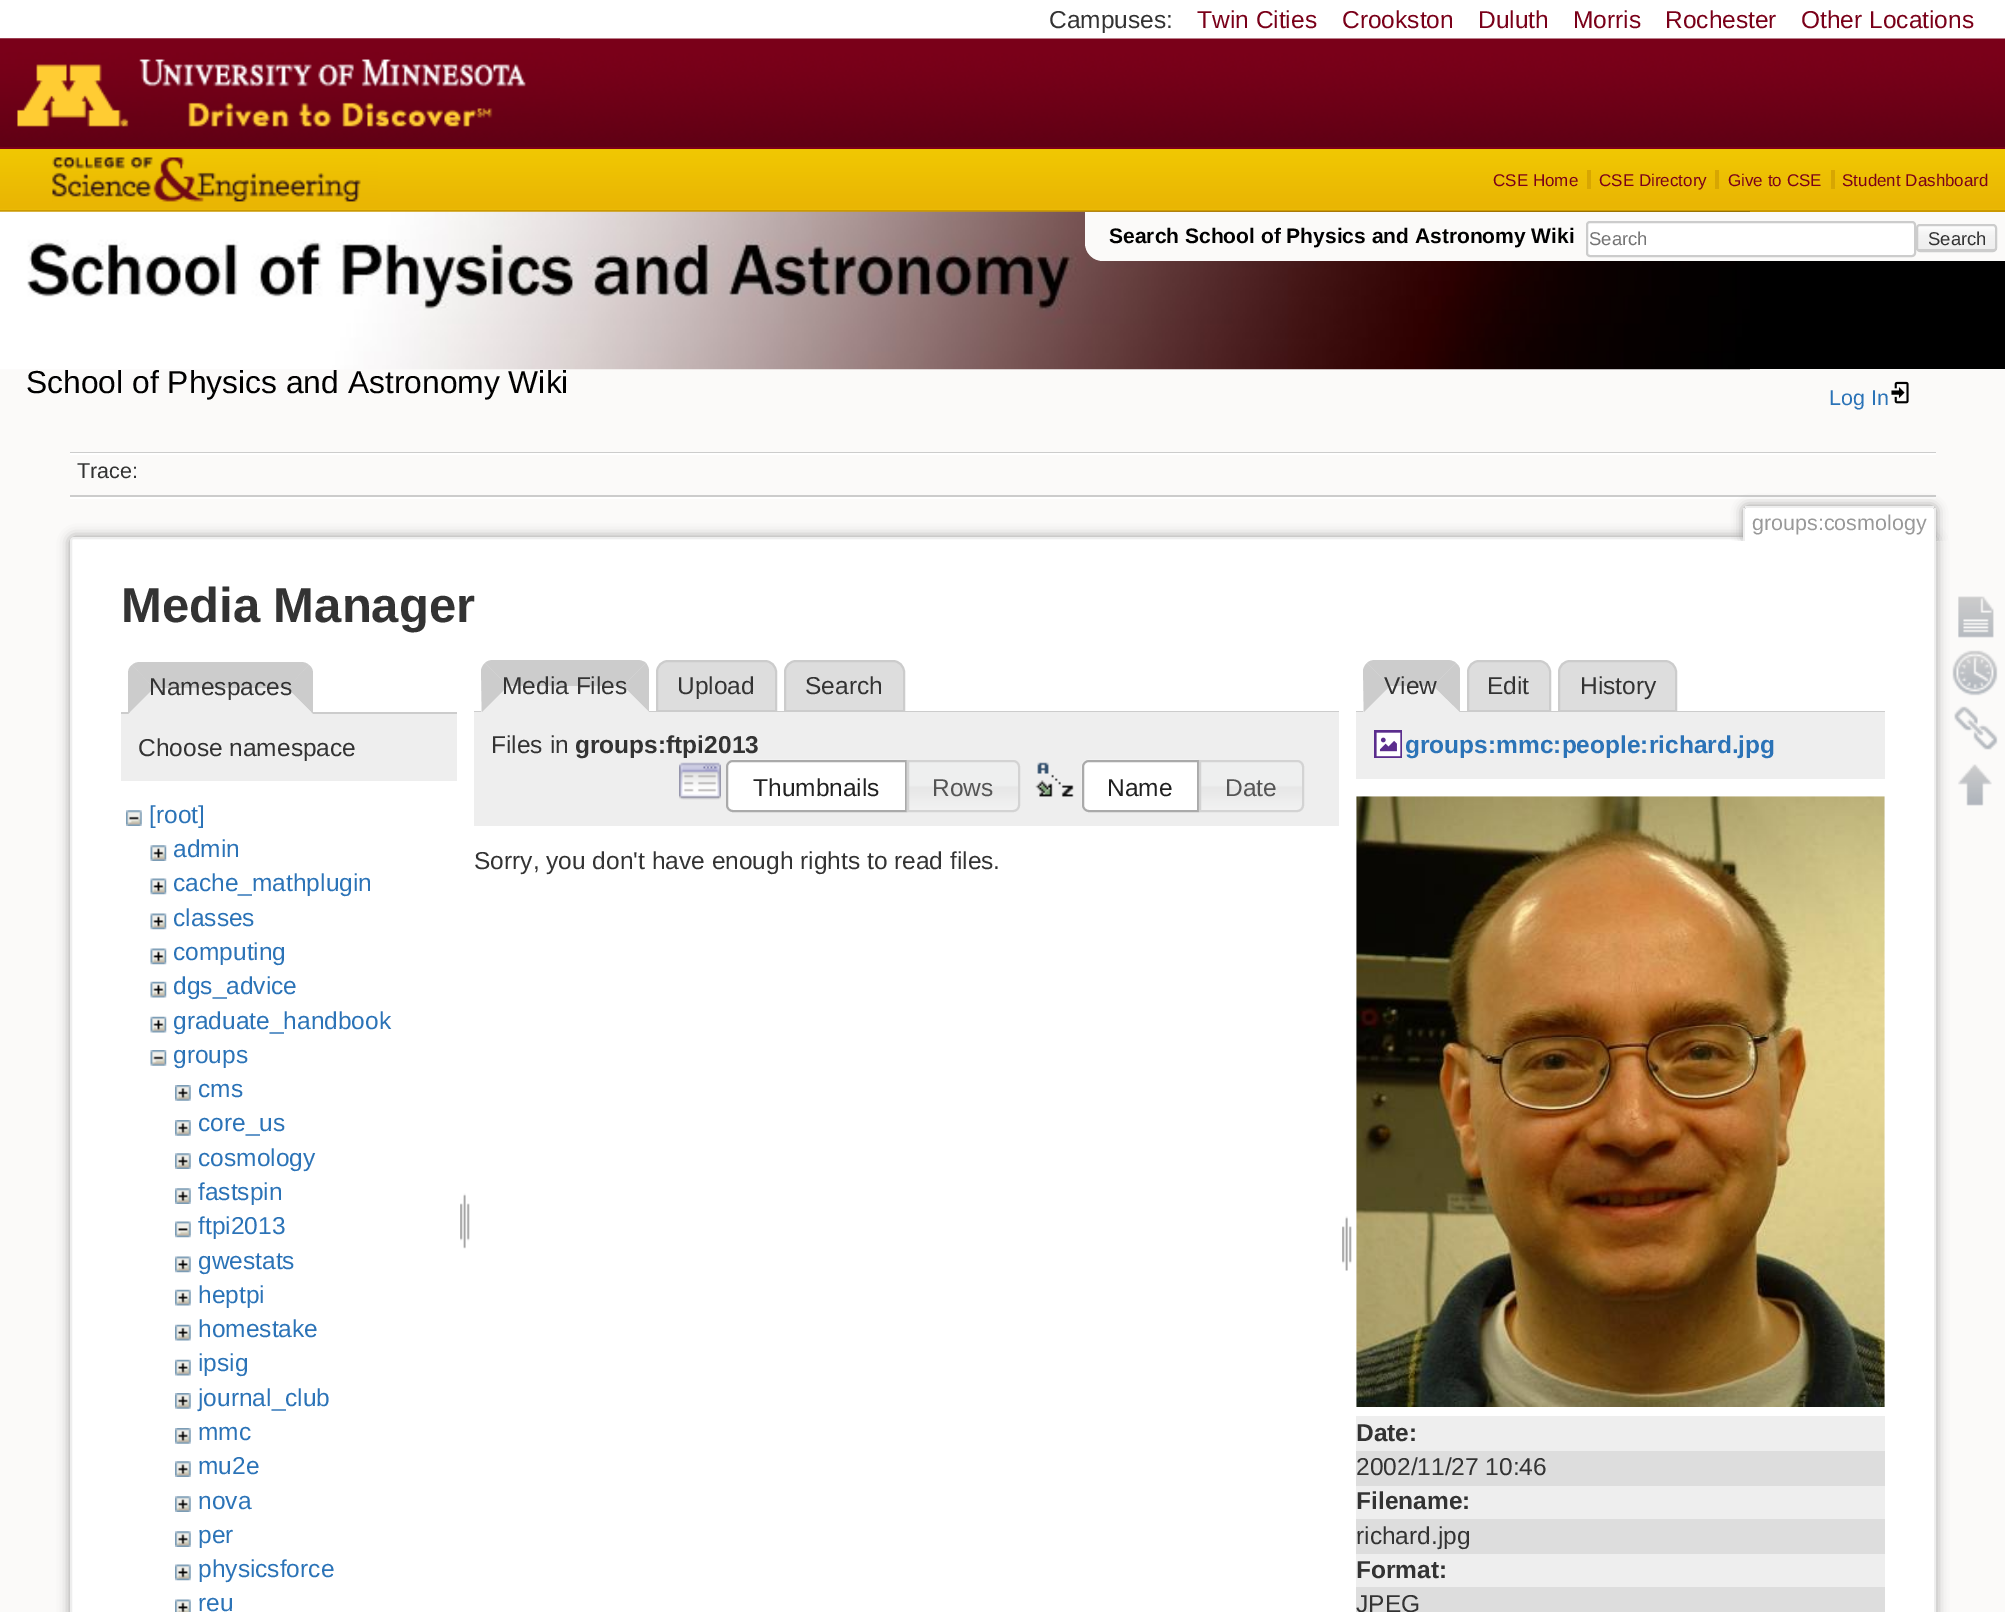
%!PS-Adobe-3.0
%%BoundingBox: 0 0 2005 1612
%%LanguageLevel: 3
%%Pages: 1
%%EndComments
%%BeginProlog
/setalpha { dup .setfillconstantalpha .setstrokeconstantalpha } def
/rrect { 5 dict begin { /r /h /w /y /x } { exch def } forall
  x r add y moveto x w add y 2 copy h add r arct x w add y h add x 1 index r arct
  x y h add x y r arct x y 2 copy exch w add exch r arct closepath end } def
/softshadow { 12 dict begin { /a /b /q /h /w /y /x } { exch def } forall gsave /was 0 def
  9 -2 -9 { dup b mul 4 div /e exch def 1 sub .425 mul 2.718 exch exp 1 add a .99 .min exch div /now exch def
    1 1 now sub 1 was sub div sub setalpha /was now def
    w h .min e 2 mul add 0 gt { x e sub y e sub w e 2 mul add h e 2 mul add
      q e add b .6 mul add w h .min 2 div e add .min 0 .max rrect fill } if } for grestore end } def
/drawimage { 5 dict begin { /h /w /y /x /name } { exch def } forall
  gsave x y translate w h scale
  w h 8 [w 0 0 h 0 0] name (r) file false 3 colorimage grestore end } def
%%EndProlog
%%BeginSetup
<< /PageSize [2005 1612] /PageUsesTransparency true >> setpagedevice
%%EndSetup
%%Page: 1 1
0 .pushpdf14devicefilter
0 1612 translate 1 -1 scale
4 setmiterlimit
0.984 0.98 0.976 setrgbcolor
0 0 2005 1612 rectfill
1 setgray
0 0 2005 39 rectfill
0.478 0 0.098 setrgbcolor
0 147 2005 2 rectfill
(images/1.raw) 0 38 2005 109 drawimage
(images/2.raw) 0 38 560 89 drawimage
(images/3.raw) 0 149 2005 61 drawimage
0.796 0.6 0.004 setrgbcolor
0 210 2005 2 rectfill
(images/4.raw) 52 149 326 53 drawimage
0.843 0.651 0.008 setrgbcolor
1587 170 4 19 rectfill
1715 170 4 19 rectfill
1831 170 4 19 rectfill
0 setgray
1750 261 255 108 rectfill
(images/5.raw) 0 211 1750 159 drawimage
0.984 0.98 0.976 setrgbcolor
newpath 1085 212 moveto 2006 212 lineto 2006 261 lineto 1103 261 lineto 1093 261 1085 253 1085 243 curveto closepath fill
1 setgray
1587 222 328 34 3 rrect gsave fill grestore
0.8 setgray
2 setlinewidth
stroke
gsave
1916 224 81 28 4 rrect clip newpath
gsave newpath 1916 226 moveto 1997 226 lineto 1997 250 lineto 1916 250 lineto closepath clip newpath
<< /ShadingType 2 /ColorSpace /DeviceRGB /Coords [1957 226 1957 250] /Extend [true true] /Function << /FunctionType 3 /Domain [0 1] /Functions [<< /FunctionType 2 /Domain [0 1] /C0 [1 1 1] /C1 [0.957 0.957 0.957] /N 1 >> << /FunctionType 2 /Domain [0 1] /C0 [0.957 0.957 0.957] /C1 [0.933 0.933 0.933] /N 1 >> << /FunctionType 2 /Domain [0 1] /C0 [0.8 0.8 0.8] /C1 [0.8 0.8 0.8] /N 1 >>] /Bounds [0.3 0.99] /Encode [0 1 0 1 0 1] >> >> shfill grestore
grestore
1917 225 79 26 3 rrect stroke
(images/6.raw) 1891 381 18 23 drawimage
70 452 1866 1 rectfill
1 setgray
70 497 1866 2 rectfill
70 453 1866 2 rectfill
0.8 setgray
70 495 1866 2 rectfill
0.6 setgray
70 537 1866 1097 4 6 1 softshadow
1 setgray
71 538 1864 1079 3 rrect gsave fill grestore
0.933 setgray
stroke
gsave
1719 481 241 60 rectclip
0.6 setgray
1743 506 193 35 4 5.5 1 softshadow
grestore
1 setgray
newpath 1747 508 moveto 1932 508 lineto 1933 508 1934 509 1934 510 curveto 1934 541 lineto 1745 541 lineto 1745 510 lineto 1745 509 1746 508 1747 508 curveto closepath fill
0.933 setgray
1745 506 189 2 rectfill
1934 508 2 33 rectfill
1743 508 2 33 rectfill
0.8 setgray
newpath 140 662 moveto 137 662 134 663 132 665 curveto 154 688 lineto 287 688 lineto 309 665 lineto 307 663 304 662 301 662 curveto closepath fill
121 712 336 2 rectfill
newpath 313 714 moveto 313 674 lineto 313 670 312 667 309 665 curveto 287 688 lineto closepath fill
0.933 setgray
newpath 313 714 moveto 287 688 lineto 154 688 lineto 128 714 lineto closepath fill
0.8 setgray
newpath 132 665 moveto 129 667 128 670 128 674 curveto 128 714 lineto 154 688 lineto closepath fill
0.933 setgray
121 714 336 67 rectfill
(images/7.raw) 126 810 16 16 drawimage
(images/8.raw) 150 845 17 16 drawimage
(images/9.raw) 150 878 17 17 drawimage
(images/9.raw) 150 913 17 17 drawimage
(images/9.raw) 150 948 17 17 drawimage
(images/10.raw) 150 981 17 17 drawimage
(images/10.raw) 150 1016 17 17 drawimage
(images/11.raw) 150 1050 17 16 drawimage
(images/12.raw) 175 1085 16 16 drawimage
(images/12.raw) 175 1120 16 16 drawimage
(images/13.raw) 175 1153 16 16 drawimage
(images/13.raw) 175 1188 16 16 drawimage
(images/14.raw) 175 1221 16 17 drawimage
(images/15.raw) 175 1256 16 17 drawimage
(images/16.raw) 175 1289 16 17 drawimage
(images/16.raw) 175 1324 16 17 drawimage
(images/16.raw) 175 1359 16 17 drawimage
(images/12.raw) 175 1393 16 16 drawimage
(images/12.raw) 175 1428 16 16 drawimage
(images/13.raw) 175 1461 16 16 drawimage
(images/13.raw) 175 1496 16 16 drawimage
(images/13.raw) 175 1531 16 16 drawimage
(images/15.raw) 175 1564 16 17 drawimage
(images/17.raw) 175 1599 16 13 drawimage
(images/18.raw) 460 1193 10 56 drawimage
0.867 setgray
newpath 668 661 moveto 765 661 lineto 771 661 776 666 776 672 curveto 776 711 lineto 657 711 lineto 657 672 lineto 657 666 662 661 668 661 curveto closepath gsave fill grestore
0.8 setgray
stroke
0.867 setgray
newpath 796 661 moveto 893 661 lineto 899 661 904 666 904 672 curveto 904 711 lineto 785 711 lineto 785 672 lineto 785 666 790 661 796 661 curveto closepath gsave fill grestore
0.8 setgray
stroke
474 711 865 1 rectfill
0.933 setgray
newpath 493 660 moveto 637 660 lineto 643.5 660 649 665.5 649 672 curveto 649 712 lineto 481 712 lineto 481 672 lineto 481 665.5 486.5 660 493 660 curveto closepath fill
0.8 setgray
newpath 494 660 moveto 490 660 487 661 485 663 curveto 508 686 lineto 623 686 lineto 646 663 lineto 644 661 640 660 637 660 curveto closepath fill
newpath 649 712 moveto 649 672 lineto 649 668 648 666 646 663 curveto 623 686 lineto closepath fill
0.933 setgray
newpath 649 712 moveto 623 686 lineto 508 686 lineto 482 712 lineto closepath fill
0.8 setgray
newpath 481 670 moveto 482 667 483 665 485 663 curveto 508 686 lineto 482 712 lineto closepath fill
0.933 setgray
474 712 865 114 rectfill
(images/19.raw) 679 762 42 38 drawimage
1 setgray
newpath 733 760 moveto 907 760 lineto 907 812 lineto 733 812 lineto 729 812 726 809 726 805 curveto 726 767 lineto 726 763 729 760 733 760 curveto closepath fill
(images/20.raw) 727 759 179 4 drawimage
0.667 setgray
newpath 733 761 moveto 906 761 lineto 906 811 lineto 733 811 lineto 729.5 811 727 808.5 727 805 curveto 727 767 lineto 727 763.5 729.5 761 733 761 curveto closepath stroke
(images/21.raw) 906 760 114 52 drawimage
0.827 setgray
newpath 908 761 moveto 1013 761 lineto 1016.5 761 1019 763.5 1019 767 curveto 1019 805 lineto 1019 808.5 1016.5 811 1013 811 curveto 908 811 lineto closepath stroke
(images/22.raw) 1035 762 39 35 drawimage
(images/23.raw) 1081 759 117 53 drawimage
0.667 setgray
newpath 1089 761 moveto 1198 761 lineto 1198 811 lineto 1089 811 lineto 1085.5 811 1083 808.5 1083 805 curveto 1083 767 lineto 1083 763.5 1085.5 761 1089 761 curveto closepath stroke
(images/24.raw) 1198 760 106 52 drawimage
0.827 setgray
newpath 1200 761 moveto 1297 761 lineto 1300.5 761 1303 763.5 1303 767 curveto 1303 805 lineto 1303 808.5 1300.5 811 1297 811 curveto 1200 811 lineto closepath stroke
(images/25.raw) 1342 1216 10 55 drawimage
0.867 setgray
newpath 1479 661 moveto 1539 661 lineto 1545 661 1550 666 1550 672 curveto 1550 711 lineto 1468 711 lineto 1468 672 lineto 1468 666 1473 661 1479 661 curveto closepath gsave fill grestore
0.8 setgray
stroke
0.867 setgray
newpath 1570 661 moveto 1665 661 lineto 1671 661 1676 666 1676 672 curveto 1676 711 lineto 1559 711 lineto 1559 672 lineto 1559 666 1564 661 1570 661 curveto closepath gsave fill grestore
0.8 setgray
stroke
1356 711 529 1 rectfill
0.933 setgray
newpath 1375 660 moveto 1448 660 lineto 1454.5 660 1460 665.5 1460 672 curveto 1460 712 lineto 1363 712 lineto 1363 672 lineto 1363 665.5 1368.5 660 1375 660 curveto closepath fill
0.8 setgray
newpath 1376 660 moveto 1372 660 1369 661 1367 663 curveto 1390 686 lineto 1433 686 lineto 1456 663 lineto 1454 661 1450 660 1447 660 curveto closepath fill
newpath 1460 712 moveto 1433 686 lineto 1456 663 lineto 1458 665 1459 666 1460 669 curveto closepath fill
0.933 setgray
newpath 1459 712 moveto 1433 686 lineto 1390 686 lineto 1364 712 lineto closepath fill
0.8 setgray
newpath 1363 670 moveto 1364 667 1365 665 1367 663 curveto 1390 686 lineto 1364 712 lineto closepath fill
0.933 setgray
1356 712 529 67 rectfill
(images/26.raw) 1374 730 28 28 drawimage
(images/27.raw) 1356 796 529 611 drawimage
1356 1416 529 35 rectfill
0.867 setgray
1356 1451 529 35 rectfill
0.933 setgray
1356 1486 529 33 rectfill
0.867 setgray
1356 1519 529 35 rectfill
0.933 setgray
1356 1554 529 33 rectfill
0.867 setgray
1356 1587 529 25 rectfill
(images/28.raw) 1958 596 36 42 drawimage
(images/29.raw) 1952 650 46 46 drawimage
(images/30.raw) 1954 706 44 44 drawimage
(images/31.raw) 1958 764 34 42 drawimage
/LiberationSans-Regular [24.5 0 0 -24.5 0 0] selectfont
0.2 setgray
1049 28 moveto (Campuses:) show
0.478 0 0.098 setrgbcolor
1197 28 moveto (Twin Cities) show
1342 28 moveto (Crookston) show
1478 28 moveto (Duluth) show
1573 28 moveto (Morris) show
1665 28 moveto (Rochester) show
1801 28 moveto (Other Locations) show
/LiberationSans-Regular [17 0 0 -17 0 0] selectfont
1493 186 moveto (CSE Home) show
1599 186 moveto (CSE Directory) show
1728 186 moveto (Give to CSE) show
1842 186 moveto (Student Dashboard) show
/LiberationSans-Bold [21 0 0 -21 0 0] selectfont
0 setgray
1109 243 moveto (Search School of Physics and Astronomy Wiki) show
/LiberationSans-Regular [18.5 0 0 -18.5 0 0] selectfont
0.459 setgray
1589 245 moveto (Search) show
0.2 setgray
1928 245 moveto (Search) show
/LiberationSans-Regular [31.8 0 0 -31.8 0 0] selectfont
0 setgray
26 393 moveto (School of Physics and Astronomy Wiki) show
/LiberationSans-Regular [21.5 0 0 -21.5 0 0] selectfont
0.169 0.451 0.718 setrgbcolor
1829 405 moveto (Log In) show
0.2 setgray
77 478 moveto (Trace:) show
0.6 setgray
1752 530 moveto (groups:cosmology) show
/LiberationSans-Bold [49 0 0 -49 0 0] selectfont
0.2 setgray
121 622 moveto (Media Manager) show
/LiberationSans-Regular [24.5 0 0 -24.5 0 0] selectfont
149 695 moveto (Namespaces) show
138 756 moveto (Choose namespace) show
0.169 0.451 0.718 setrgbcolor
149 823 moveto ([root]) show
173 857 moveto (admin) show
173 891 moveto (cache_mathplugin) show
173 926 moveto (classes) show
173 960 moveto (computing) show
173 994 moveto (dgs_advice) show
173 1029 moveto (graduate_handbook) show
173 1063 moveto (groups) show
198 1097 moveto (cms) show
198 1131 moveto (core_us) show
198 1166 moveto (cosmology) show
198 1200 moveto (fastspin) show
198 1234 moveto (ftpi2013) show
198 1269 moveto (gwestats) show
198 1303 moveto (heptpi) show
198 1337 moveto (homestake) show
198 1371 moveto (ipsig) show
198 1406 moveto (journal_club) show
198 1440 moveto (mmc) show
198 1474 moveto (mu2e) show
198 1509 moveto (nova) show
198 1543 moveto (per) show
198 1577 moveto (physicsforce) show
198 1611 moveto (reu) show
0.2 setgray
502 694 moveto (Media Files) show
677 694 moveto (Upload) show
805 694 moveto (Search) show
491 753 moveto (Files in) show
/LiberationSans-Bold [24.5 0 0 -24.5 0 0] selectfont
575 753 moveto (groups:ftpi2013) show
/LiberationSans-Regular [24.5 0 0 -24.5 0 0] selectfont
0.129 setgray
753 796 moveto (Thumbnails) show
0.333 setgray
932 796 moveto (Rows) show
0.129 setgray
1107 796 moveto (Name) show
0.333 setgray
1225 796 moveto (Date) show
0.2 setgray
474 869 moveto (Sorry, you don't have enough rights to read files.) show
1384 694 moveto (View) show
1487 694 moveto (Edit) show
1580 694 moveto (History) show
/LiberationSans-Bold [24.5 0 0 -24.5 0 0] selectfont
0.169 0.451 0.718 setrgbcolor
1405 753 moveto (groups:mmc:people:richard.jpg) show
0.2 setgray
1356 1441 moveto (Date:) show
/LiberationSans-Regular [24.5 0 0 -24.5 0 0] selectfont
1356 1475 moveto (2002/11/27 10:46) show
/LiberationSans-Bold [24.5 0 0 -24.5 0 0] selectfont
1356 1509 moveto (Filename:) show
/LiberationSans-Regular [24.5 0 0 -24.5 0 0] selectfont
1356 1544 moveto (richard.jpg) show
/LiberationSans-Bold [24.5 0 0 -24.5 0 0] selectfont
1356 1578 moveto (Format:) show
/LiberationSans-Regular [24.5 0 0 -24.5 0 0] selectfont
1356 1612 moveto (JPEG) show
.poppdf14devicefilter showpage
%%EOF
